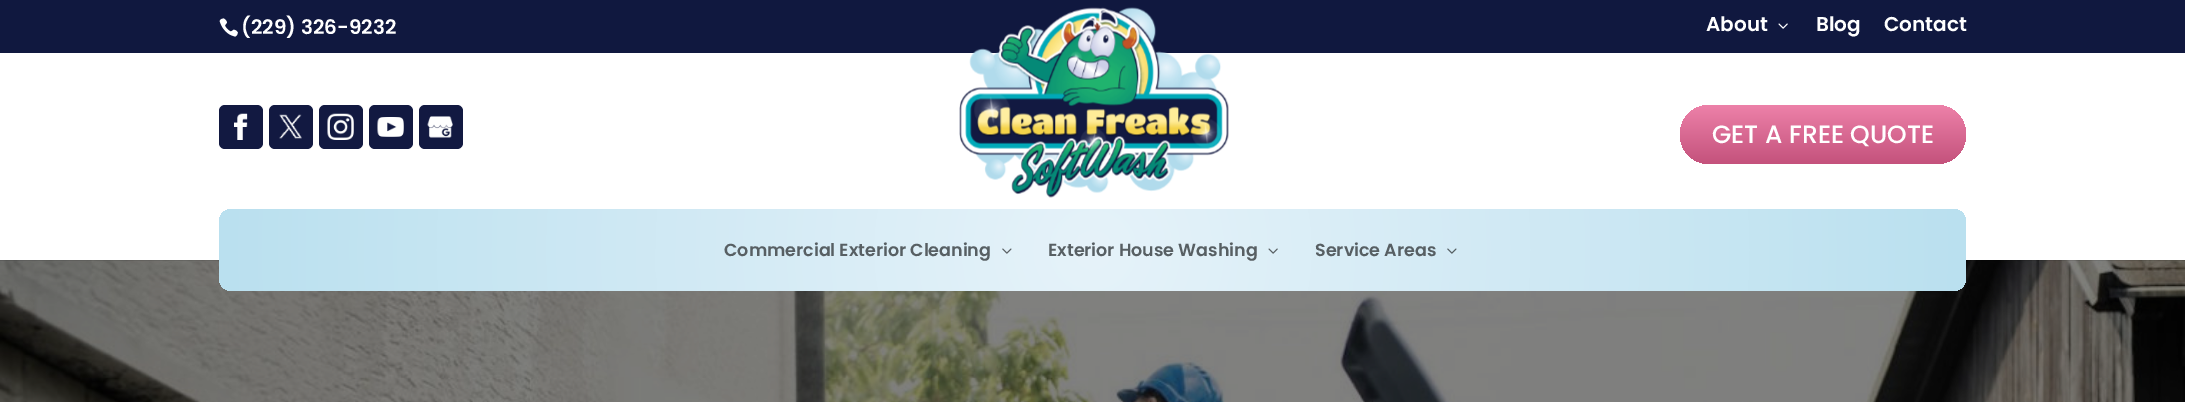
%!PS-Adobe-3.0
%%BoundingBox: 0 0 2185 402
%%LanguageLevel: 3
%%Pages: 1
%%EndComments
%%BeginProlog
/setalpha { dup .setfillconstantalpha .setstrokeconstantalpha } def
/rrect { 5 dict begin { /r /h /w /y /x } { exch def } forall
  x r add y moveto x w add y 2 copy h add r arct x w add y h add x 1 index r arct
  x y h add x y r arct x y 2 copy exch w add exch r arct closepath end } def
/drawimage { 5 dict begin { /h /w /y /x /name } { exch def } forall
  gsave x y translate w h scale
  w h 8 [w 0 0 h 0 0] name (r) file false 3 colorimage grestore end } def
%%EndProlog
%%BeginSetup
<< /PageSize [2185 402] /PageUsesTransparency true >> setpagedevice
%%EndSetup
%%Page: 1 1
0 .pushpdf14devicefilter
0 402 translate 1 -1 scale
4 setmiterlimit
1 setgray
0 0 2185 402 rectfill
0.063 0.094 0.247 setrgbcolor
0 0 2185 53 rectfill
(images/1.raw) 219 18 19 19 drawimage
(images/2.raw) 1778 23 10 6 drawimage
(images/12.raw) 0 260 2185 142 drawimage
0.1 setalpha
0 setgray
0 260 2185 1 rectfill
1 setalpha
(images/3.raw) 959 7 270 191 drawimage
0.071 0.098 0.255 setrgbcolor
219 105 44 44 6 rrect fill
(images/4.raw) 234 113 14 27 drawimage
269 105 44 44 6 rrect fill
(images/5.raw) 279 114 23 25 drawimage
319 105 44 44 6 rrect fill
(images/6.raw) 327 113 27 27 drawimage
369 105 44 44 6 rrect fill
(images/7.raw) 377 117 27 20 drawimage
419 105 44 44 6 rrect fill
(images/8.raw) 427 116 26 22 drawimage
gsave 1680 105 286 59 29.5 rrect clip newpath
<< /ShadingType 2 /ColorSpace /DeviceRGB /Coords [1823 105 1823 164] /Extend [true true] /Function << /FunctionType 2 /Domain [0 1] /C0 [0.929 0.506 0.663] /C1 [0.769 0.322 0.486] /N 1 >> >> shfill grestore
gsave 219 209 1747 82 13 rrect clip newpath 1093 250 translate 875 875 scale
<< /ShadingType 3 /ColorSpace /DeviceRGB /Coords [0 0 0 0 0 1] /Extend [true true] /Function << /FunctionType 2 /Domain [0 1] /C0 [0.902 0.953 0.98] /C1 [0.729 0.878 0.937] /N 1 >> >> shfill grestore
(images/9.raw) 1002 248 10 6 drawimage
(images/10.raw) 1268 248 10 6 drawimage
(images/11.raw) 1447 248 10 6 drawimage
/Poppins-SemiBold [20 0 0 -20 0 0] selectfont
1 setgray
241 34 moveto (\(229\) 326-9232) show
1706 31 moveto (About) show
1816 31 moveto (Blog) show
1884 31 moveto (Contact) show
/Poppins-Medium [25 0 0 -25 0 0] selectfont
1712 143 moveto (GET A FREE QUOTE) show
/Poppins-SemiBold [17.5 0 0 -17.5 0 0] selectfont
0.341 0.373 0.388 setrgbcolor
724 256 moveto (Commercial Exterior Cleaning) show
1048 256 moveto (Exterior House Washing) show
1315 256 moveto (Service Areas) show
.poppdf14devicefilter showpage
%%EOF
